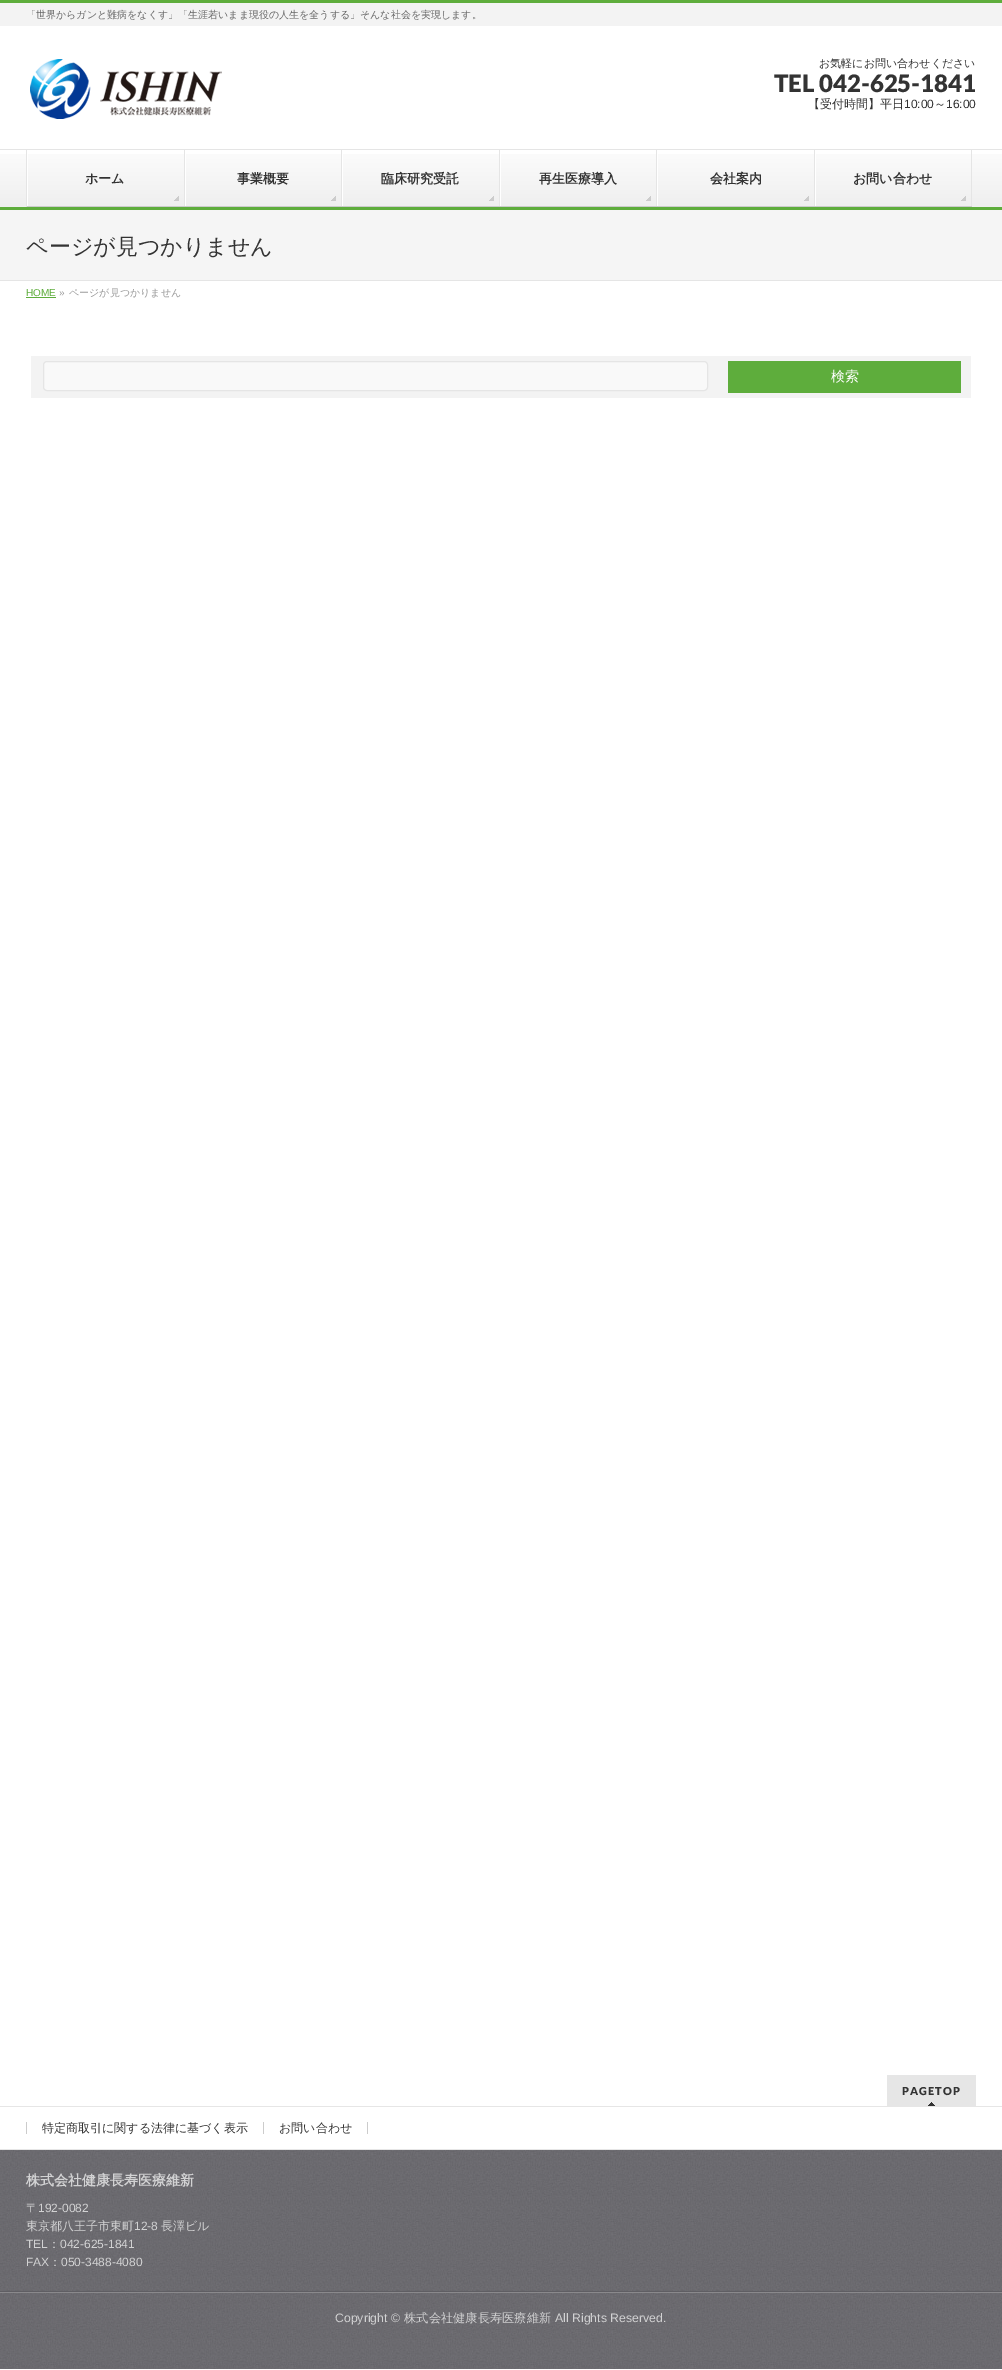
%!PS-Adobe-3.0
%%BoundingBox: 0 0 1002 2370
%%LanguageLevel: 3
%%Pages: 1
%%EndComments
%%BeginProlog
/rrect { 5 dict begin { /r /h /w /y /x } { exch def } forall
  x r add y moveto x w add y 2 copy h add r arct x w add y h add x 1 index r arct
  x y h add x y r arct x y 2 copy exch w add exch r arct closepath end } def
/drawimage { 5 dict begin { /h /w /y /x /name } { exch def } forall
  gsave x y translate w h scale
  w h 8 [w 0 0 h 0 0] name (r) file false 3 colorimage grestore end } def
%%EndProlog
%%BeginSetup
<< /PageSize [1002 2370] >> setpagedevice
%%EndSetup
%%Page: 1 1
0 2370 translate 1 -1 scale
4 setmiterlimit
1 setgray
0 0 1002 2370 rectfill
0.953 setgray
0 3 1002 23 rectfill
0.369 0.678 0.235 setrgbcolor
0 0 1002 3 rectfill
(images/1.raw) 30 59 192 60 drawimage
(images/2.raw) 0 154 1002 53 drawimage
0.898 setgray
0 149 1002 1 rectfill
0.369 0.678 0.235 setrgbcolor
0 207 1002 3 rectfill
0.898 setgray
26 150 1 57 rectfill
1 setgray
27 150 1 57 rectfill
(images/3.raw) 174 196 5 5 drawimage
0.898 setgray
184 150 1 57 rectfill
0.8 setgray
27 206 158 1 rectfill
1 setgray
185 150 1 57 rectfill
(images/3.raw) 331 196 5 5 drawimage
0.898 setgray
341 150 1 57 rectfill
0.8 setgray
185 206 157 1 rectfill
1 setgray
342 150 1 57 rectfill
(images/3.raw) 489 196 5 5 drawimage
0.898 setgray
499 150 1 57 rectfill
0.8 setgray
342 206 158 1 rectfill
1 setgray
500 150 1 57 rectfill
(images/3.raw) 646 196 5 5 drawimage
0.898 setgray
656 150 1 57 rectfill
0.8 setgray
500 206 157 1 rectfill
1 setgray
657 150 1 57 rectfill
(images/3.raw) 804 196 5 5 drawimage
0.898 setgray
814 150 1 57 rectfill
0.8 setgray
657 206 158 1 rectfill
1 setgray
815 150 1 57 rectfill
(images/3.raw) 961 196 5 5 drawimage
0.898 setgray
971 150 1 57 rectfill
0.8 setgray
815 206 157 1 rectfill
0.961 setgray
0 210 1002 70 rectfill
0.898 setgray
0 280 1002 1 rectfill
0.369 0.678 0.235 setrgbcolor
26 297 30 1 rectfill
0.953 setgray
31 356 940 42 rectfill
0.976 setgray
43.5 361.5 664 29 3.5 rrect gsave fill grestore
0.898 setgray
stroke
0.369 0.678 0.235 setrgbcolor
728 361 233 32 rectfill
0.902 setgray
887 2075 89 31 rectfill
(images/4.raw) 928 2102 7 4 drawimage
0 2106 1002 1 rectfill
0 2149 1002 1 rectfill
0.8 setgray
263 2122 1 12 rectfill
26 2122 1 12 rectfill
367 2122 1 12 rectfill
(images/5.raw) 0 2150 1002 141 drawimage
0.373 0.369 0.388 setrgbcolor
0 2291 1002 1 rectfill
(images/6.raw) 0 2293 1002 76 drawimage
0.541 0.537 0.549 setrgbcolor
0 2292 1002 1 rectfill
/WenQuanYiZenHei-Medium [10 0 0 -10 0 0] selectfont
0.4 setgray
26 18 moveto (「世界からガンと難病をなくす」「生涯若いまま現役の人生を全うする」そんな社会を実現します。) show
/WenQuanYiZenHei-Medium [11 0 0 -11 0 0] selectfont
0.2 setgray
819 67 moveto (お気軽にお問い合わせください) show
/Lato-Black [24 0 0 -24 0 0] selectfont
774 92 moveto (TEL 042-625-1841) show
/WenQuanYiZenHei-Medium [12 0 0 -12 0 0] selectfont
808 108 moveto (【受付時間】平日) show
/LiberationSans-Regular [12 0 0 -12 0 0] selectfont
904 108 moveto (10:00) show
/WenQuanYiZenHei-Medium [12 0 0 -12 0 0] selectfont
934 108 moveto (～) show
/LiberationSans-Regular [12 0 0 -12 0 0] selectfont
946 108 moveto (16:00) show
/WenQuanYiZenHei-Bold [13 0 0 -13 0 0] selectfont
85 183 moveto (ホーム) show
237 183 moveto (事業概要) show
381 183 moveto (臨床研究受託) show
539 183 moveto (再生医療導入) show
710 183 moveto (会社案内) show
853 183 moveto (お問い合わせ) show
/WenQuanYiZenHei-Medium [22 0 0 -22 0 0] selectfont
26 254 moveto (ページが見つかりません) show
/LiberationSans-Regular [10 0 0 -10 0 0] selectfont
0.369 0.678 0.235 setrgbcolor
26 296 moveto (HOME) show
0.6 setgray
59 296 moveto (») show
/WenQuanYiZenHei-Medium [10 0 0 -10 0 0] selectfont
69 296 moveto (ページが見つかりません) show
/WenQuanYiZenHei-Medium [14 0 0 -14 0 0] selectfont
1 setgray
831 381 moveto (検索) show
/Lato-Black [11 0 0 -11 0 0] selectfont
0.2 setgray
902 2095 moveto 1 0 (PAGETOP) ashow
/WenQuanYiZenHei-Medium [12 0 0 -12 0 0] selectfont
42 2132 moveto (特定商取引に関する法律に基づく表示) show
279 2132 moveto (お問い合わせ) show
/WenQuanYiZenHei-Bold [14 0 0 -14 0 0] selectfont
0.824 0.824 0.827 setrgbcolor
26 2185 moveto (株式会社健康長寿医療維新) show
/WenQuanYiZenHei-Medium [12 0 0 -12 0 0] selectfont
26 2212 moveto (〒) show
/LiberationSans-Regular [12 0 0 -12 0 0] selectfont
38 2212 moveto (192-0082) show
/WenQuanYiZenHei-Medium [12 0 0 -12 0 0] selectfont
26 2230 moveto (東京都八王子市東町) show
/LiberationSans-Regular [12 0 0 -12 0 0] selectfont
134 2230 moveto (12-8) show
/WenQuanYiZenHei-Medium [12 0 0 -12 0 0] selectfont
161 2230 moveto (長澤ビル) show
/LiberationSans-Regular [12 0 0 -12 0 0] selectfont
26 2248 moveto (TEL) show
/WenQuanYiZenHei-Medium [12 0 0 -12 0 0] selectfont
48 2248 moveto (：) show
/LiberationSans-Regular [12 0 0 -12 0 0] selectfont
60 2248 moveto (042-625-1841) show
26 2266 moveto (FAX) show
/WenQuanYiZenHei-Medium [12 0 0 -12 0 0] selectfont
49 2266 moveto (：) show
/LiberationSans-Regular [12 0 0 -12 0 0] selectfont
61 2266 moveto (050-3488-4080) show
/LiberationSans-Regular [12.25 0 0 -12.25 0 0] selectfont
335 2322 moveto (Copyright ©) show
/WenQuanYiZenHei-Medium [12.25 0 0 -12.25 0 0] selectfont
404 2322 moveto (株式会社健康長寿医療維新) show
/LiberationSans-Regular [12.25 0 0 -12.25 0 0] selectfont
555 2322 moveto (All Rights Reserved.) show
showpage
%%EOF
